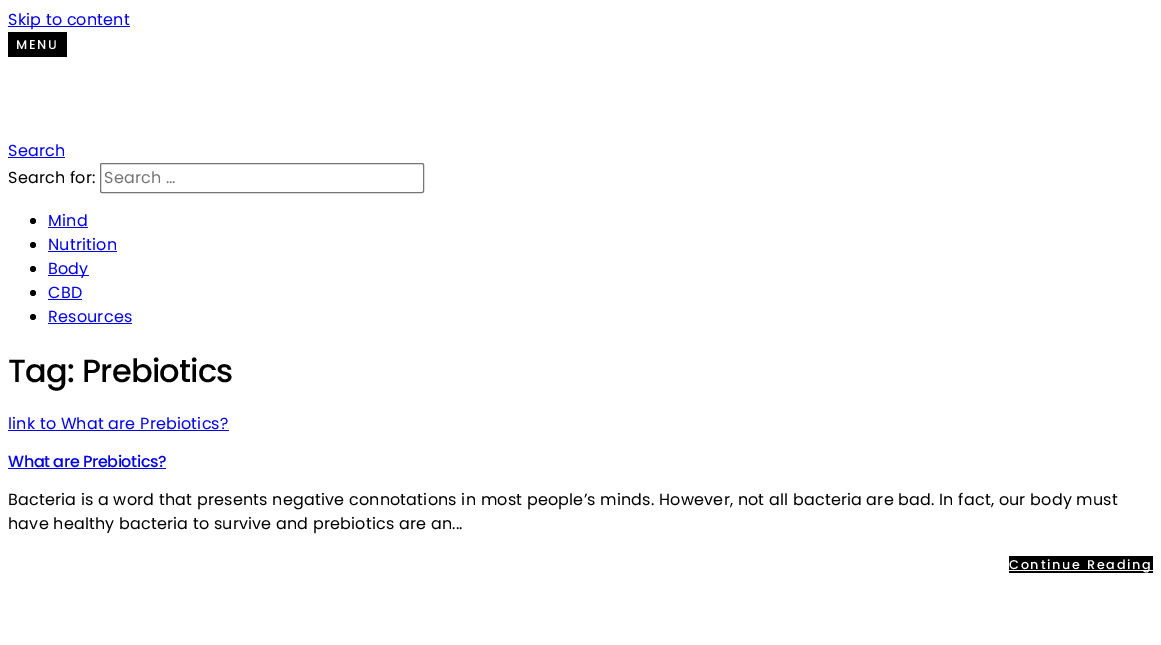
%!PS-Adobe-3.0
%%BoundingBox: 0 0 1161 645
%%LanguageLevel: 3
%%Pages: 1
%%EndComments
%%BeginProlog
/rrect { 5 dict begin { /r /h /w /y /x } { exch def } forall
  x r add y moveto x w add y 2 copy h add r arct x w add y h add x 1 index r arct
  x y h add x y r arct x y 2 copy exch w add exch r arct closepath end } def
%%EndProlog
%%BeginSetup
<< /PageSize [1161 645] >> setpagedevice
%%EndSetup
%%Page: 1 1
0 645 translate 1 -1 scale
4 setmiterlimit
1 setgray
0 0 1161 645 rectfill
0 0 0.933 setrgbcolor
8 26 122 1 rectfill
0 setgray
8 32 59 25 rectfill
0 0 0.933 setrgbcolor
8 157 57 1 rectfill
0.463 setgray
100.5 163.5 323 29 1.5 rrect stroke
0 setgray
newpath 33 221 3 0 360 arc closepath fill
0 0 0.933 setrgbcolor
48 227 40 1 rectfill
0 setgray
newpath 33 245 3 0 360 arc closepath fill
0 0 0.933 setrgbcolor
48 251 69 1 rectfill
0 setgray
newpath 33 269 3 0 360 arc closepath fill
0 0 0.933 setrgbcolor
48 275 41 1 rectfill
0 setgray
newpath 33 293 3 0 360 arc closepath fill
0 0 0.933 setrgbcolor
48 299 34 1 rectfill
0 setgray
newpath 33 317 3 0 360 arc closepath fill
0 0 0.933 setrgbcolor
48 323 84 1 rectfill
8 430 221 1 rectfill
8 468 158 1 rectfill
0 setgray
1009 556 144 17 rectfill
1 setgray
1009 570 144 1 rectfill
/Poppins-Regular [16 0 0 -16 0 0] selectfont
0 0 0.933 setrgbcolor
8 25 moveto 0.2 0 (Skip to content) ashow
/Poppins-Medium [12.75 0 0 -12.75 0 0] selectfont
1 setgray
16 49 moveto 1.75 0 (MENU) ashow
/Poppins-Regular [16 0 0 -16 0 0] selectfont
0 0 0.933 setrgbcolor
8 156 moveto 0.2 0 (Search) ashow
0 setgray
8 183 moveto 0.2 0 (Search for:) ashow
0.459 setgray
104 183 moveto 0.2 0 (Search …) ashow
0 0 0.933 setrgbcolor
48 226 moveto 0.2 0 (Mind) ashow
48 250 moveto 0.2 0 (Nutrition) ashow
48 274 moveto 0.2 0 (Body) ashow
48 298 moveto 0.2 0 (CBD) ashow
48 322 moveto 0.2 0 (Resources) ashow
/Poppins-Medium [32 0 0 -32 0 0] selectfont
0 setgray
8 382 moveto -0.75 0 (Tag: Prebiotics) ashow
/Poppins-Regular [16 0 0 -16 0 0] selectfont
0 0 0.933 setrgbcolor
8 429 moveto 0.2 0 (link to What are Prebiotics?) ashow
/Poppins-Medium [16 0 0 -16 0 0] selectfont
8 467 moveto -0.4 0 (What are Prebiotics?) ashow
/Poppins-Regular [16 0 0 -16 0 0] selectfont
0 setgray
8 505 moveto 0.2 0 (Bacteria is a word that presents negative connotations in most people’s minds. However, not all bacteria are bad. In fact, our body must) ashow
8 529 moveto 0.2 0 (have healthy bacteria to survive and prebiotics are an...) ashow
/Poppins-Medium [12.75 0 0 -12.75 0 0] selectfont
1 setgray
1009 569 moveto 1.75 0 (Continue Reading) ashow
showpage
%%EOF
